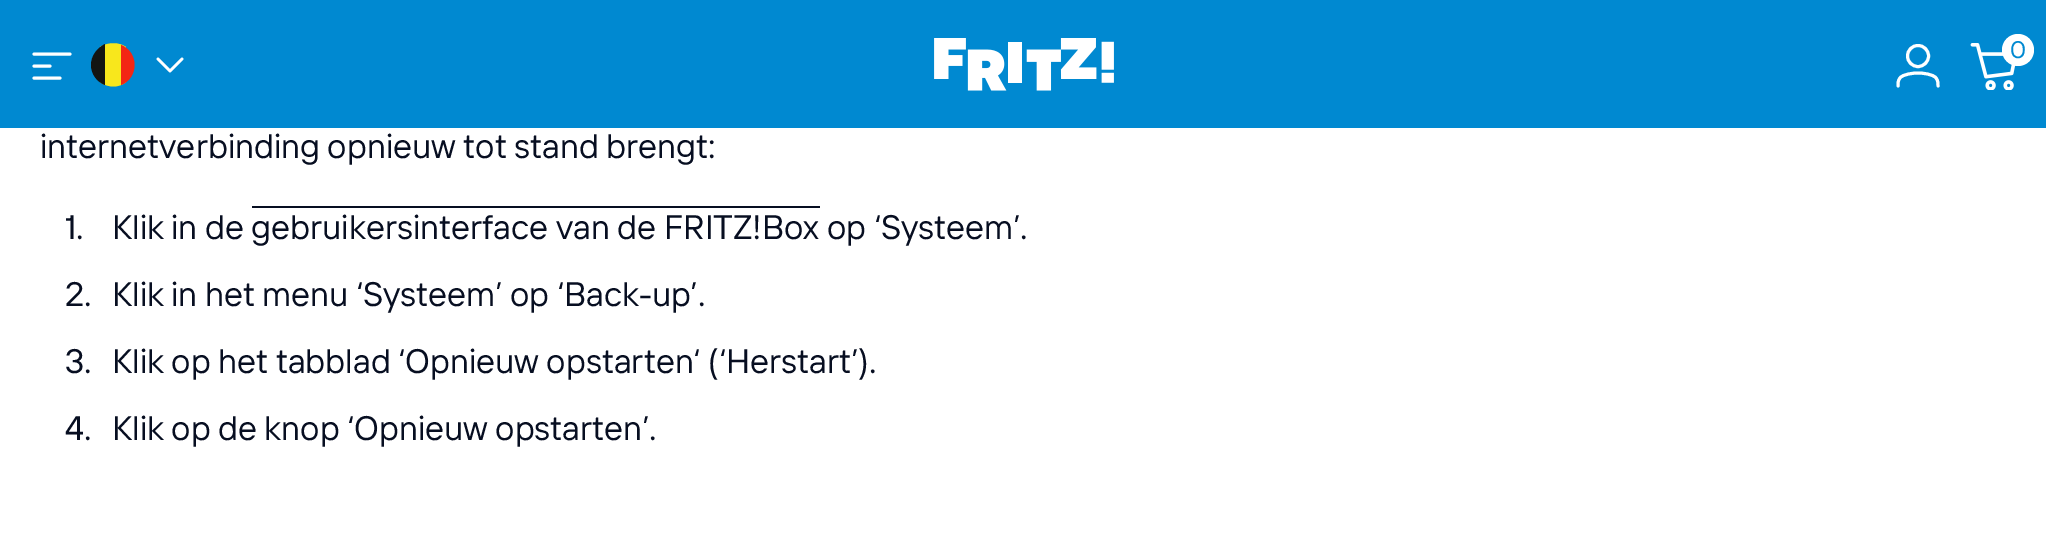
%!PS-Adobe-3.0
%%BoundingBox: 0 0 2046 546
%%LanguageLevel: 3
%%Pages: 1
%%EndComments
%%BeginProlog
/drawimage { 5 dict begin { /h /w /y /x /name } { exch def } forall
  gsave x y translate w h scale
  w h 8 [w 0 0 h 0 0] name (r) file false 3 colorimage grestore end } def
%%EndProlog
%%BeginSetup
<< /PageSize [2046 546] >> setpagedevice
%%EndSetup
%%Page: 1 1
0 546 translate 1 -1 scale
4 setmiterlimit
1 setgray
0 0 2046 546 rectfill
0 0.537 0.82 setrgbcolor
0 0 2046 128 rectfill
1 setgray
3 setlinewidth
1 setlinecap
newpath 34 54 moveto 70 54 lineto 34 66 moveto 50 66 lineto 34 78 moveto 60 78 lineto stroke
0.973 0.906 0.11 setrgbcolor
newpath 100 82 moveto 100 47 lineto 108 42 119 42 126 47 curveto 126 82 lineto 119 88 108 88 100 82 curveto closepath fill
0.953 0.149 0.078 setrgbcolor
newpath 121 85 moveto 121 45 lineto 139 52 139 78 121 85 curveto closepath fill
0.075 0.078 0.075 setrgbcolor
newpath 91 65 moveto 91 56 97 48 105 44 curveto 105 85 lineto 97 82 91 74 91 65 curveto closepath fill
1 setgray
2.8 setlinewidth
1 setlinejoin
newpath 158 59 moveto 170 71 lineto 182 59 lineto stroke
(images/1.raw) 934 38 180 53 drawimage
3 setlinewidth
0 setlinecap
0 setlinejoin
newpath 1918 56 10.5 0 360 arc closepath stroke
1 setlinecap
newpath 1918 73 moveto 1922.5 73 1933 74 1936 78 curveto 1938 80.5 1938 83 1938 86 curveto 1918 73 moveto 1913.5 73 1903 74 1900 78 curveto 1898 80.5 1898 83 1898 86 curveto stroke
(images/2.raw) 1970 43 46 47 drawimage
newpath 2018 50 16 0 360 arc closepath fill
0.027 0.055 0.129 setrgbcolor
252 206 568 2 rectfill
/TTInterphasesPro-Regular [24 0 0 -24 0 0] selectfont
0 0.537 0.82 setrgbcolor
2010 58 moveto (0) show
/TTInterphasesPro-Regular [34 0 0 -34 0 0] selectfont
0.027 0.055 0.129 setrgbcolor
40 158 moveto (internetverbinding opnieuw tot stand brengt:) show
65 239 moveto (1.) show
112 239 moveto (Klik in de gebruikersinterface van de FRITZ!Box) show
827 239 moveto (op ‘Systeem’.) show
65 306 moveto (2.) show
112 306 moveto (Klik in het menu ‘Systeem’ op ‘Back-up’.) show
65 373 moveto (3.) show
112 373 moveto (Klik op het tabblad ‘Opnieuw opstarten‘ \(‘Herstart’\).) show
65 440 moveto (4.) show
112 440 moveto (Klik op de knop ‘Opnieuw opstarten’.) show
showpage
%%EOF
